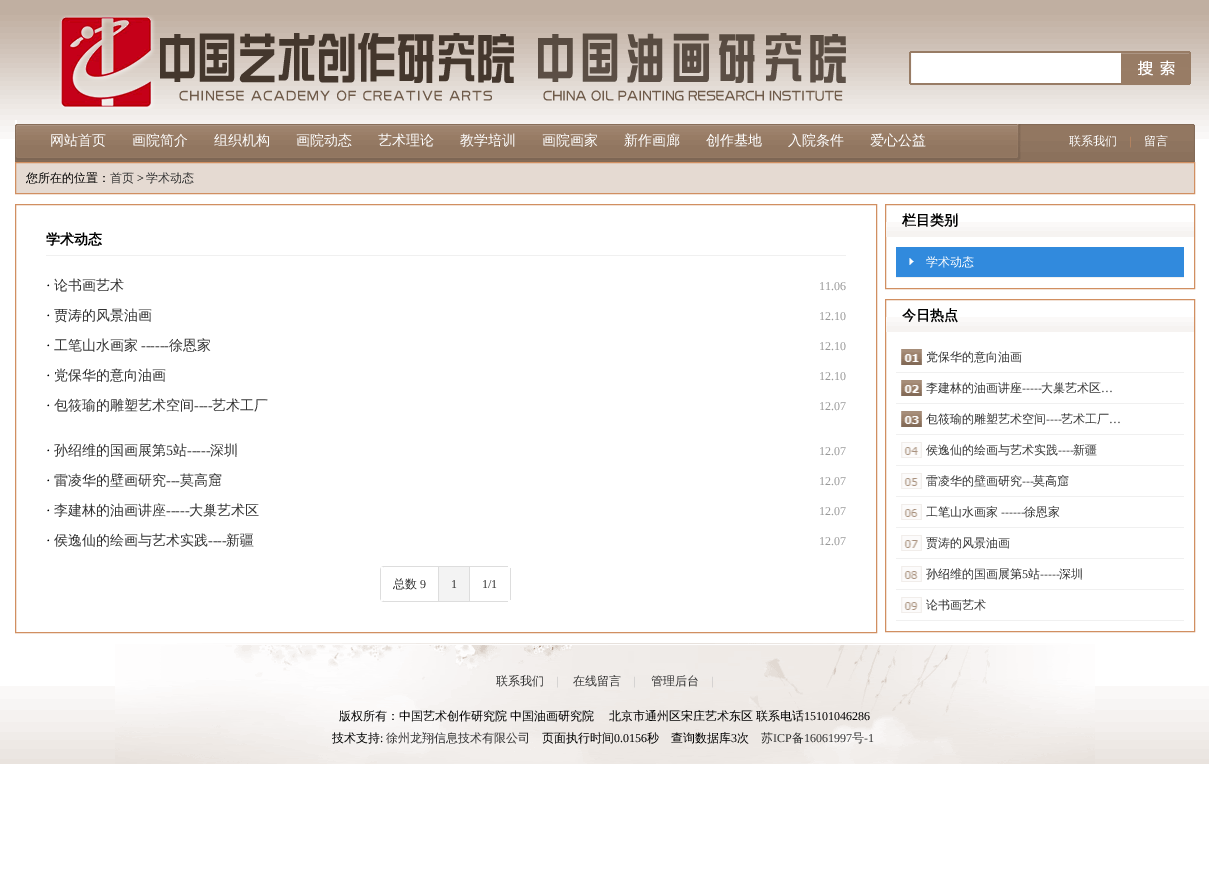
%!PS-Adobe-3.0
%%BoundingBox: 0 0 1209 892
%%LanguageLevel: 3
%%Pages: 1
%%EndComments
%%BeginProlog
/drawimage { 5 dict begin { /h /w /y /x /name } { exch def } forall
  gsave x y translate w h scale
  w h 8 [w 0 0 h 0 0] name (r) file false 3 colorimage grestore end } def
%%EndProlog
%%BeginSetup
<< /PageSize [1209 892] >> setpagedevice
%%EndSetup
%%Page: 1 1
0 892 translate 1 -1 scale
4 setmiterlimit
1 setgray
0 0 1209 892 rectfill
(images/1.raw) 0 0 1209 139 drawimage
(images/2.raw) 59 15 787 94 drawimage
(images/3.raw) 909 51 212 34 drawimage
(images/4.raw) 1121 51 70 34 drawimage
(images/5.raw) 15 124 1180 38 drawimage
(images/6.raw) 15 120 2 41 drawimage
(images/7.raw) 17 124 1000 37 drawimage
(images/8.raw) 1017 124 4 37 drawimage
(images/9.raw) 1193 124 2 37 drawimage
0.898 0.855 0.824 setrgbcolor
newpath 15.5 162.5 moveto 1194.5 162.5 lineto 1194.5 193.5 lineto 15.5 193.5 lineto closepath gsave fill grestore
0.82 0.561 0.38 setrgbcolor
stroke
15.5 204.5 861 428 rectstroke
0.941 setgray
46 255 800 1 rectfill
0.867 setgray
510 568 1 32 rectfill
newpath 384 566 moveto 438 566 lineto 438 602 lineto 384 602 lineto 382 602 380 600 380 598 curveto 380 570 lineto 380 568 382 566 384 566 curveto closepath 384 567 moveto 438 567 lineto 438 601 lineto 384 601 lineto 382 601 381 600 381 598 curveto 381 570 lineto 381 568 382 567 384 567 curveto closepath eofill
1 setgray
381 567 2 34 rectfill
0.867 setgray
438 566 70 1 rectfill
438 601 70 1 rectfill
438 566 1 36 rectfill
0.953 setgray
439 567 30 34 rectfill
0.867 setgray
469 566 1 36 rectfill
0.82 0.561 0.38 setrgbcolor
885.5 204.5 309 84 rectstroke
(images/10.raw) 886 222 308 15 drawimage
0.192 0.541 0.867 setrgbcolor
896 247 288 30 rectfill
(images/11.raw) 909 258 5 7 drawimage
0.941 setgray
896 277 288 1 rectfill
0.82 0.561 0.38 setrgbcolor
885.5 299.5 309 332 rectstroke
(images/10.raw) 886 317 308 15 drawimage
(images/12.raw) 901 349 21 264 drawimage
0.941 setgray
896 372 288 1 rectfill
896 403 288 1 rectfill
896 434 288 1 rectfill
896 465 288 1 rectfill
896 496 288 1 rectfill
896 527 288 1 rectfill
896 558 288 1 rectfill
896 589 288 1 rectfill
896 620 288 1 rectfill
(images/13.raw) 0 686 1209 78 drawimage
(images/14.raw) 115 643 980 121 drawimage
/WenQuanYiZenHei-Medium [14 0 0 -14 0 0] selectfont
1 setgray
50 145 moveto (网站首页) show
132 145 moveto (画院简介) show
214 145 moveto (组织机构) show
296 145 moveto (画院动态) show
378 145 moveto (艺术理论) show
460 145 moveto (教学培训) show
542 145 moveto (画院画家) show
624 145 moveto (新作画廊) show
706 145 moveto (创作基地) show
788 145 moveto (入院条件) show
870 145 moveto (爱心公益) show
/WenQuanYiZenHei-Medium [12 0 0 -12 0 0] selectfont
1069 145 moveto (联系我们) show
/LiberationSerif-Regular [12 0 0 -12 0 0] selectfont
0.82 0.561 0.38 setrgbcolor
1129 145 moveto (|) show
/WenQuanYiZenHei-Medium [12 0 0 -12 0 0] selectfont
1 setgray
1144 145 moveto (留言) show
0 setgray
26 182 moveto (您所在的位置：) show
0.2 setgray
110 182 moveto (首页) show
/LiberationSerif-Regular [12 0 0 -12 0 0] selectfont
0 setgray
137 182 moveto (>) show
/WenQuanYiZenHei-Medium [12 0 0 -12 0 0] selectfont
0.2 setgray
146 182 moveto (学术动态) show
/WenQuanYiZenHei-Bold [14 0 0 -14 0 0] selectfont
0 setgray
46 244 moveto (学术动态) show
/LiberationSerif-Regular [14 0 0 -14 0 0] selectfont
46 290 moveto (·) show
/WenQuanYiZenHei-Medium [14 0 0 -14 0 0] selectfont
0.2 setgray
54 290 moveto (论书画艺术) show
/LiberationSerif-Regular [12 0 0 -12 0 0] selectfont
0.6 setgray
819 290 moveto (11.06) show
/LiberationSerif-Regular [14 0 0 -14 0 0] selectfont
0 setgray
46 320 moveto (·) show
/WenQuanYiZenHei-Medium [14 0 0 -14 0 0] selectfont
0.2 setgray
54 320 moveto (贾涛的风景油画) show
/LiberationSerif-Regular [12 0 0 -12 0 0] selectfont
0.6 setgray
819 320 moveto (12.10) show
/LiberationSerif-Regular [14 0 0 -14 0 0] selectfont
0 setgray
46 350 moveto (·) show
/WenQuanYiZenHei-Medium [14 0 0 -14 0 0] selectfont
0.2 setgray
54 350 moveto (工笔山水画家) show
/LiberationSerif-Regular [14 0 0 -14 0 0] selectfont
141 350 moveto (------) show
/WenQuanYiZenHei-Medium [14 0 0 -14 0 0] selectfont
169 350 moveto (徐恩家) show
/LiberationSerif-Regular [12 0 0 -12 0 0] selectfont
0.6 setgray
819 350 moveto (12.10) show
/LiberationSerif-Regular [14 0 0 -14 0 0] selectfont
0 setgray
46 380 moveto (·) show
/WenQuanYiZenHei-Medium [14 0 0 -14 0 0] selectfont
0.2 setgray
54 380 moveto (党保华的意向油画) show
/LiberationSerif-Regular [12 0 0 -12 0 0] selectfont
0.6 setgray
819 380 moveto (12.10) show
/LiberationSerif-Regular [14 0 0 -14 0 0] selectfont
0 setgray
46 410 moveto (·) show
/WenQuanYiZenHei-Medium [14 0 0 -14 0 0] selectfont
0.2 setgray
54 410 moveto (包筱瑜的雕塑艺术空间) show
/LiberationSerif-Regular [14 0 0 -14 0 0] selectfont
194 410 moveto (----) show
/WenQuanYiZenHei-Medium [14 0 0 -14 0 0] selectfont
212 410 moveto (艺术工厂) show
/LiberationSerif-Regular [12 0 0 -12 0 0] selectfont
0.6 setgray
819 410 moveto (12.07) show
/LiberationSerif-Regular [14 0 0 -14 0 0] selectfont
0 setgray
46 455 moveto (·) show
/WenQuanYiZenHei-Medium [14 0 0 -14 0 0] selectfont
0.2 setgray
54 455 moveto (孙绍维的国画展第) show
/LiberationSerif-Regular [14 0 0 -14 0 0] selectfont
166 455 moveto (5) show
/WenQuanYiZenHei-Medium [14 0 0 -14 0 0] selectfont
173 455 moveto (站) show
/LiberationSerif-Regular [14 0 0 -14 0 0] selectfont
187 455 moveto (-----) show
/WenQuanYiZenHei-Medium [14 0 0 -14 0 0] selectfont
210 455 moveto (深圳) show
/LiberationSerif-Regular [12 0 0 -12 0 0] selectfont
0.6 setgray
819 455 moveto (12.07) show
/LiberationSerif-Regular [14 0 0 -14 0 0] selectfont
0 setgray
46 485 moveto (·) show
/WenQuanYiZenHei-Medium [14 0 0 -14 0 0] selectfont
0.2 setgray
54 485 moveto (雷凌华的壁画研究) show
/LiberationSerif-Regular [14 0 0 -14 0 0] selectfont
166 485 moveto (---) show
/WenQuanYiZenHei-Medium [14 0 0 -14 0 0] selectfont
180 485 moveto (莫高窟) show
/LiberationSerif-Regular [12 0 0 -12 0 0] selectfont
0.6 setgray
819 485 moveto (12.07) show
/LiberationSerif-Regular [14 0 0 -14 0 0] selectfont
0 setgray
46 515 moveto (·) show
/WenQuanYiZenHei-Medium [14 0 0 -14 0 0] selectfont
0.2 setgray
54 515 moveto (李建林的油画讲座) show
/LiberationSerif-Regular [14 0 0 -14 0 0] selectfont
166 515 moveto (-----) show
/WenQuanYiZenHei-Medium [14 0 0 -14 0 0] selectfont
189 515 moveto (大巢艺术区) show
/LiberationSerif-Regular [12 0 0 -12 0 0] selectfont
0.6 setgray
819 515 moveto (12.07) show
/LiberationSerif-Regular [14 0 0 -14 0 0] selectfont
0 setgray
46 545 moveto (·) show
/WenQuanYiZenHei-Medium [14 0 0 -14 0 0] selectfont
0.2 setgray
54 545 moveto (侯逸仙的绘画与艺术实践) show
/LiberationSerif-Regular [14 0 0 -14 0 0] selectfont
208 545 moveto (----) show
/WenQuanYiZenHei-Medium [14 0 0 -14 0 0] selectfont
226 545 moveto (新疆) show
/LiberationSerif-Regular [12 0 0 -12 0 0] selectfont
0.6 setgray
819 545 moveto (12.07) show
/WenQuanYiZenHei-Medium [12 0 0 -12 0 0] selectfont
0.2 setgray
393 588 moveto (总数) show
/LiberationSerif-Regular [12 0 0 -12 0 0] selectfont
420 588 moveto (9) show
451 588 moveto (1) show
482 588 moveto (1/1) show
/WenQuanYiZenHei-Bold [14 0 0 -14 0 0] selectfont
0 setgray
902 225 moveto (栏目类别) show
/WenQuanYiZenHei-Medium [12 0 0 -12 0 0] selectfont
1 setgray
926 266 moveto (学术动态) show
/WenQuanYiZenHei-Bold [14 0 0 -14 0 0] selectfont
0 setgray
902 320 moveto (今日热点) show
/WenQuanYiZenHei-Medium [12 0 0 -12 0 0] selectfont
0.2 setgray
926 361 moveto (党保华的意向油画) show
926 392 moveto (李建林的油画讲座) show
/LiberationSerif-Regular [12 0 0 -12 0 0] selectfont
1022 392 moveto (-----) show
/WenQuanYiZenHei-Medium [12 0 0 -12 0 0] selectfont
1041 392 moveto (大巢艺术区) show
/LiberationSerif-Regular [12 0 0 -12 0 0] selectfont
1101 392 moveto (…) show
/WenQuanYiZenHei-Medium [12 0 0 -12 0 0] selectfont
926 423 moveto (包筱瑜的雕塑艺术空间) show
/LiberationSerif-Regular [12 0 0 -12 0 0] selectfont
1046 423 moveto (----) show
/WenQuanYiZenHei-Medium [12 0 0 -12 0 0] selectfont
1061 423 moveto (艺术工厂) show
/LiberationSerif-Regular [12 0 0 -12 0 0] selectfont
1109 423 moveto (…) show
/WenQuanYiZenHei-Medium [12 0 0 -12 0 0] selectfont
926 454 moveto (侯逸仙的绘画与艺术实践) show
/LiberationSerif-Regular [12 0 0 -12 0 0] selectfont
1058 454 moveto (----) show
/WenQuanYiZenHei-Medium [12 0 0 -12 0 0] selectfont
1073 454 moveto (新疆) show
926 485 moveto (雷凌华的壁画研究) show
/LiberationSerif-Regular [12 0 0 -12 0 0] selectfont
1022 485 moveto (---) show
/WenQuanYiZenHei-Medium [12 0 0 -12 0 0] selectfont
1033 485 moveto (莫高窟) show
926 516 moveto (工笔山水画家) show
/LiberationSerif-Regular [12 0 0 -12 0 0] selectfont
1001 516 moveto (------) show
/WenQuanYiZenHei-Medium [12 0 0 -12 0 0] selectfont
1024 516 moveto (徐恩家) show
926 547 moveto (贾涛的风景油画) show
926 578 moveto (孙绍维的国画展第) show
/LiberationSerif-Regular [12 0 0 -12 0 0] selectfont
1022 578 moveto (5) show
/WenQuanYiZenHei-Medium [12 0 0 -12 0 0] selectfont
1028 578 moveto (站) show
/LiberationSerif-Regular [12 0 0 -12 0 0] selectfont
1040 578 moveto (-----) show
/WenQuanYiZenHei-Medium [12 0 0 -12 0 0] selectfont
1059 578 moveto (深圳) show
926 609 moveto (论书画艺术) show
496 685 moveto (联系我们) show
/LiberationSerif-Regular [12 0 0 -12 0 0] selectfont
0.749 setgray
556 685 moveto (|) show
/WenQuanYiZenHei-Medium [12 0 0 -12 0 0] selectfont
0.2 setgray
573 685 moveto (在线留言) show
/LiberationSerif-Regular [12 0 0 -12 0 0] selectfont
0.749 setgray
633 685 moveto (|) show
/WenQuanYiZenHei-Medium [12 0 0 -12 0 0] selectfont
0.2 setgray
651 685 moveto (管理后台) show
/LiberationSerif-Regular [12 0 0 -12 0 0] selectfont
0.749 setgray
711 685 moveto (|) show
/WenQuanYiZenHei-Medium [12 0 0 -12 0 0] selectfont
0 setgray
339 720 moveto (版权所有：中国艺术创作研究院) show
510 720 moveto -1 0 32 (中国油画研究院　 北京市通州区宋庄艺术东区) widthshow
756 720 moveto (联系电话) show
/LiberationSerif-Regular [12 0 0 -12 0 0] selectfont
804 720 moveto (15101046286) show
/WenQuanYiZenHei-Medium [12 0 0 -12 0 0] selectfont
332 742 moveto (技术支持) show
/LiberationSerif-Regular [12 0 0 -12 0 0] selectfont
380 742 moveto (:) show
/WenQuanYiZenHei-Medium [12 0 0 -12 0 0] selectfont
0.2 setgray
386 742 moveto (徐州龙翔信息技术有限公司) show
0 setgray
542 742 moveto (页面执行时间) show
/LiberationSerif-Regular [12 0 0 -12 0 0] selectfont
614 742 moveto (0.0156) show
/WenQuanYiZenHei-Medium [12 0 0 -12 0 0] selectfont
647 742 moveto (秒　查询数据库) show
/LiberationSerif-Regular [12 0 0 -12 0 0] selectfont
731 742 moveto (3) show
/WenQuanYiZenHei-Medium [12 0 0 -12 0 0] selectfont
737 742 moveto (次) show
0.2 setgray
761 742 moveto (苏) show
/LiberationSerif-Regular [12 0 0 -12 0 0] selectfont
773 742 moveto (ICP) show
/WenQuanYiZenHei-Medium [12 0 0 -12 0 0] selectfont
792 742 moveto (备) show
/LiberationSerif-Regular [12 0 0 -12 0 0] selectfont
804 742 moveto (16061997) show
/WenQuanYiZenHei-Medium [12 0 0 -12 0 0] selectfont
852 742 moveto (号) show
/LiberationSerif-Regular [12 0 0 -12 0 0] selectfont
864 742 moveto (-1) show
showpage
%%EOF
